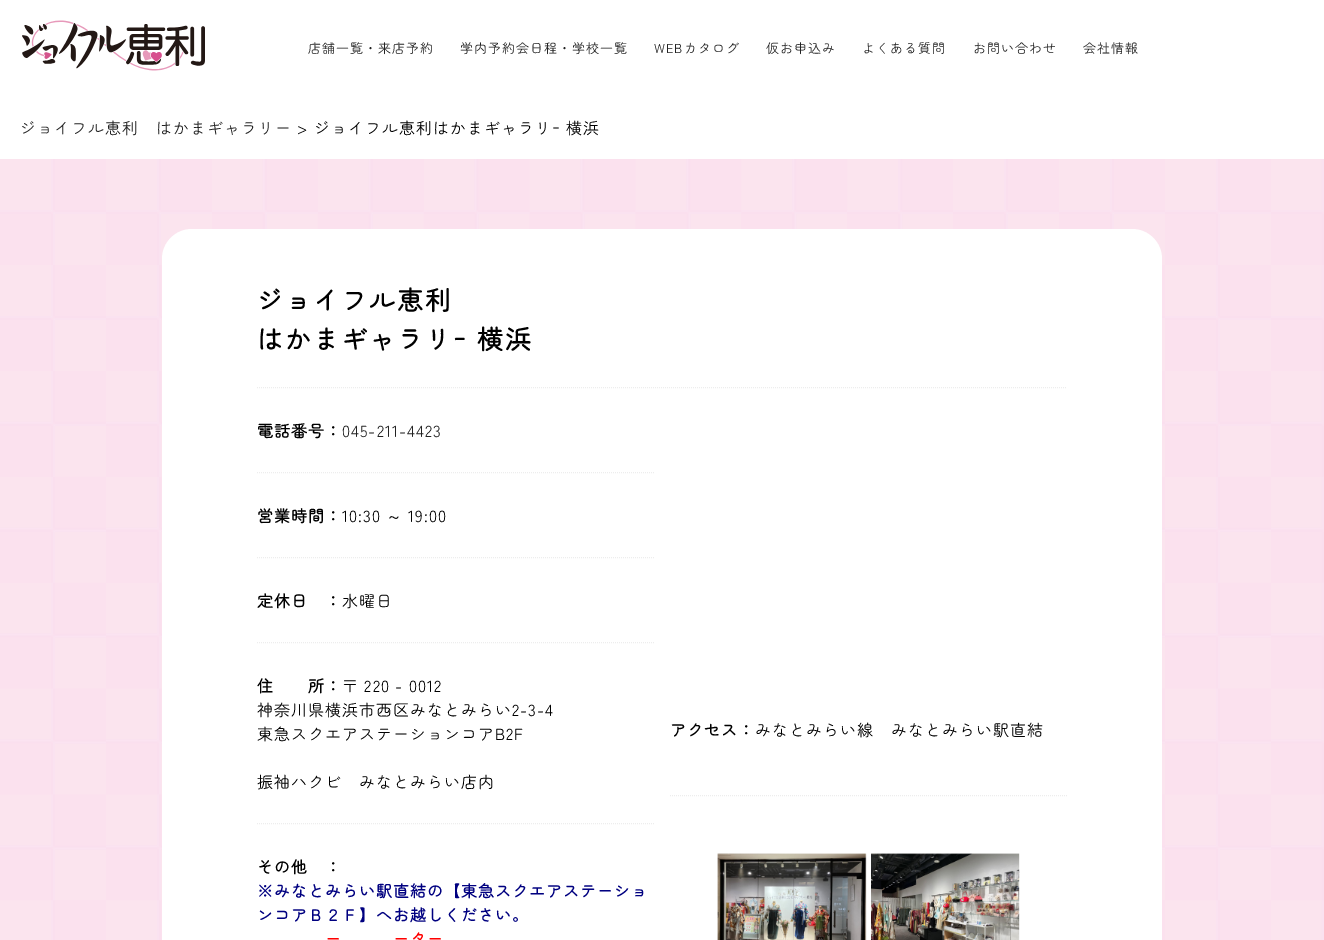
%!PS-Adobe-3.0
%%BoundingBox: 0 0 1324 940
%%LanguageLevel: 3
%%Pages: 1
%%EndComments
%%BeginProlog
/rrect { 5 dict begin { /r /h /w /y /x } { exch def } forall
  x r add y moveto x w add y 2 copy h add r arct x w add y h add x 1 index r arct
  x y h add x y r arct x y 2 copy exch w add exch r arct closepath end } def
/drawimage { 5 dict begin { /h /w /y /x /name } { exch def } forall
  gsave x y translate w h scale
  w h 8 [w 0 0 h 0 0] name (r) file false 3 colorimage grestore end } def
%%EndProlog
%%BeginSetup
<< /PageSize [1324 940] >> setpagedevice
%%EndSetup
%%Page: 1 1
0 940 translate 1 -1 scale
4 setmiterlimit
1 setgray
0 0 1324 940 rectfill
(images/1.raw) 22 20 183 51 drawimage
(images/2.raw) 0 159 1324 781 drawimage
162 229 1000 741 30 rrect fill
0.929 setgray
[1 1] 0 setdash
newpath 257 387.5 moveto 1067 387.5 lineto stroke
newpath 257 472.5 moveto 654 472.5 lineto stroke
newpath 257 557.5 moveto 654 557.5 lineto stroke
newpath 257 642.5 moveto 654 642.5 lineto stroke
newpath 257 823.5 moveto 654 823.5 lineto stroke
newpath 670 795.5 moveto 1067 795.5 lineto stroke
(images/3.raw) 717 853 303 87 drawimage
/ZenMaruGothic-Regular [13 0 0 -13 0 0] selectfont
0.133 setgray
308 53 moveto 1 0 (店舗一覧・来店予約) ashow
460 53 moveto 1 0 (学内予約会日程・学校一覧) ashow
654 53 moveto 1 0 (WEBカタログ) ashow
766 53 moveto 1 0 (仮お申込み) ashow
862 53 moveto 1 0 (よくある質問) ashow
973 53 moveto 1 0 (お問い合わせ) ashow
1083 53 moveto 1 0 (会社情報) ashow
/ZenMaruGothic-Regular [16 0 0 -16 0 0] selectfont
20 134 moveto 1 0 (ジョイフル恵利　はかまギャラリー) ashow
0 setgray
297 134 moveto 1 0 (> ジョイフル恵利はかまギャラリｰ 横浜) ashow
/ZenMaruGothic-Bold [26 0 0 -26 0 0] selectfont
257 310 moveto 2 0 (ジョイフル恵利) ashow
257 349 moveto 2 0 (はかまギャラリｰ 横浜) ashow
/ZenMaruGothic-Bold [16 0 0 -16 0 0] selectfont
257 437 moveto 1 0 (電話番号：) ashow
/ZenMaruGothic-Regular [16 0 0 -16 0 0] selectfont
0.133 setgray
342 437 moveto 1 0 (045-211-4423) ashow
/ZenMaruGothic-Bold [16 0 0 -16 0 0] selectfont
0 setgray
257 522 moveto 1 0 (営業時間：) ashow
/ZenMaruGothic-Regular [16 0 0 -16 0 0] selectfont
342 522 moveto 1 0 (10:30) ashow
/WenQuanYiZenHei-Medium [16 0 0 -16 0 0] selectfont
386 522 moveto 1 0 (～) ashow
/ZenMaruGothic-Regular [16 0 0 -16 0 0] selectfont
408 522 moveto 1 0 (19:00) ashow
/ZenMaruGothic-Bold [16 0 0 -16 0 0] selectfont
257 607 moveto 1 0 (定休日　：) ashow
/ZenMaruGothic-Regular [16 0 0 -16 0 0] selectfont
342 607 moveto 1 0 (水曜日) ashow
/ZenMaruGothic-Bold [16 0 0 -16 0 0] selectfont
257 692 moveto 1 0 (住　　所：) ashow
/ZenMaruGothic-Regular [16 0 0 -16 0 0] selectfont
342 692 moveto 1 0 (〒 220 - 0012) ashow
257 716 moveto 1 0 (神奈川県横浜市西区みなとみらい2-3-4) ashow
257 740 moveto 1 0 (東急スクエアステーションコアB2F) ashow
257 788 moveto 1 0 (振袖ハクビ　みなとみらい店内) ashow
/ZenMaruGothic-Bold [16 0 0 -16 0 0] selectfont
257 873 moveto 1 0 (その他　：) ashow
0 0 0.502 setrgbcolor
257 897 moveto 1 0 (※みなとみらい駅直結の【東急スクエアステーショ) ashow
257 921 moveto 1 0 (ンコアＢ２Ｆ】へお越しください。) ashow
1 0 0 setrgbcolor
325 945 moveto 1 0 (ー) ashow
393 945 moveto 1 0 (ーター) ashow
0 setgray
670 736 moveto 1 0 (アクセス：) ashow
/ZenMaruGothic-Regular [16 0 0 -16 0 0] selectfont
755 736 moveto 1 0 (みなとみらい線　みなとみらい駅直結) ashow
showpage
%%EOF
